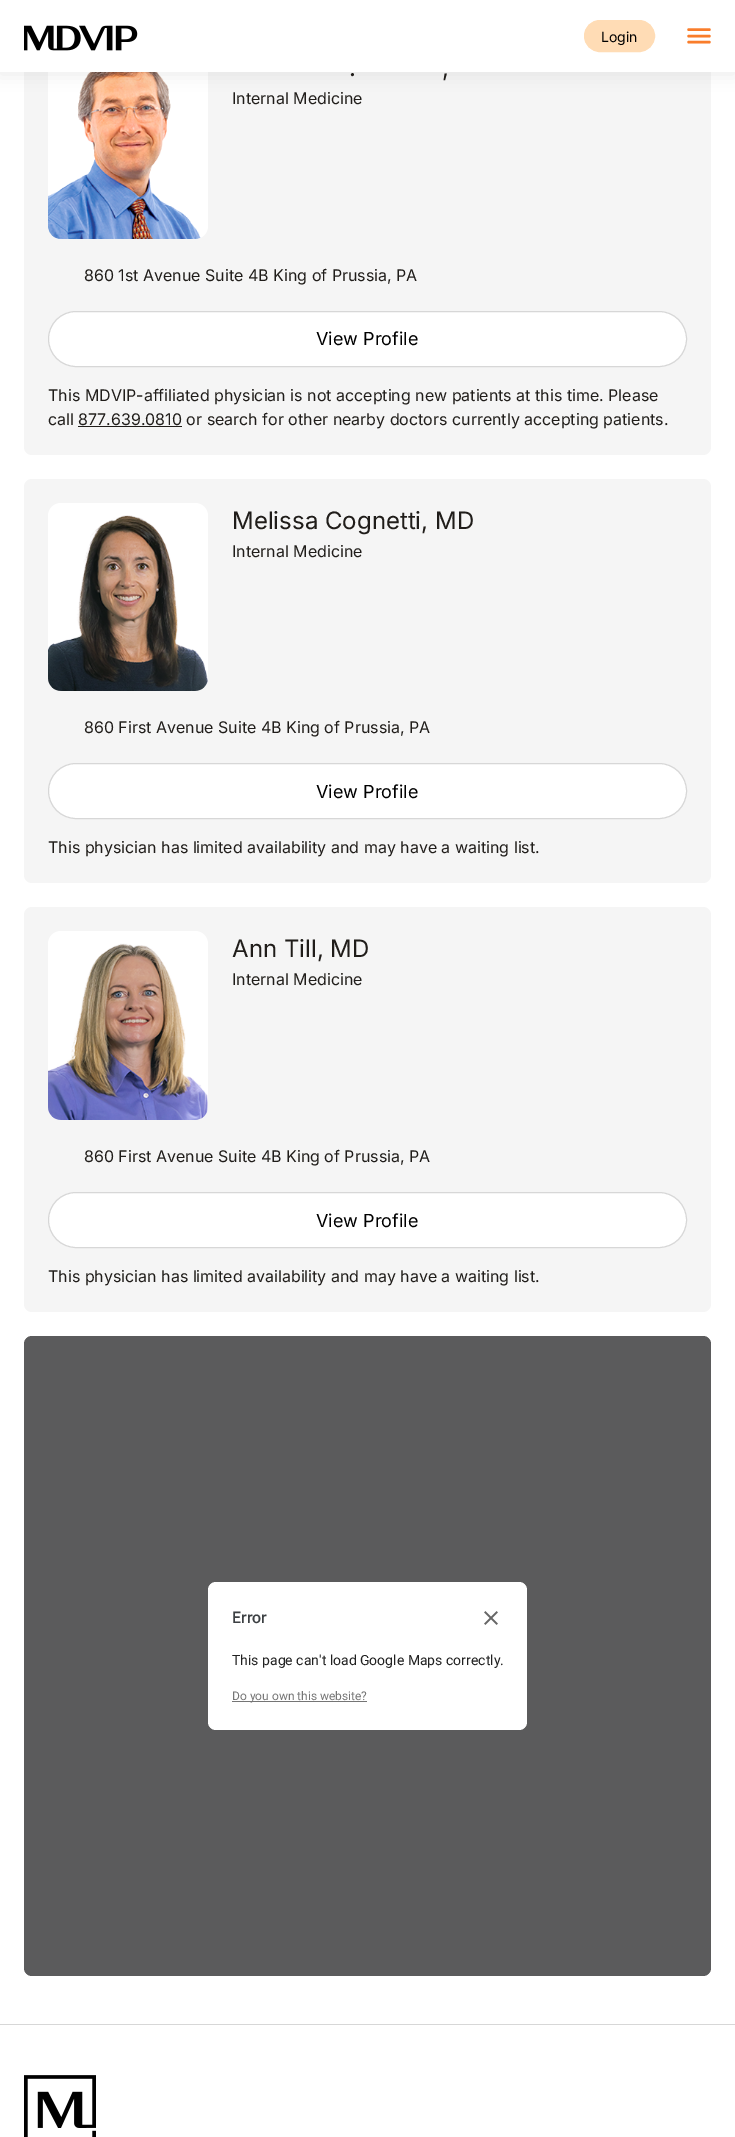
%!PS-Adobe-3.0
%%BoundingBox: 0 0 735 2137
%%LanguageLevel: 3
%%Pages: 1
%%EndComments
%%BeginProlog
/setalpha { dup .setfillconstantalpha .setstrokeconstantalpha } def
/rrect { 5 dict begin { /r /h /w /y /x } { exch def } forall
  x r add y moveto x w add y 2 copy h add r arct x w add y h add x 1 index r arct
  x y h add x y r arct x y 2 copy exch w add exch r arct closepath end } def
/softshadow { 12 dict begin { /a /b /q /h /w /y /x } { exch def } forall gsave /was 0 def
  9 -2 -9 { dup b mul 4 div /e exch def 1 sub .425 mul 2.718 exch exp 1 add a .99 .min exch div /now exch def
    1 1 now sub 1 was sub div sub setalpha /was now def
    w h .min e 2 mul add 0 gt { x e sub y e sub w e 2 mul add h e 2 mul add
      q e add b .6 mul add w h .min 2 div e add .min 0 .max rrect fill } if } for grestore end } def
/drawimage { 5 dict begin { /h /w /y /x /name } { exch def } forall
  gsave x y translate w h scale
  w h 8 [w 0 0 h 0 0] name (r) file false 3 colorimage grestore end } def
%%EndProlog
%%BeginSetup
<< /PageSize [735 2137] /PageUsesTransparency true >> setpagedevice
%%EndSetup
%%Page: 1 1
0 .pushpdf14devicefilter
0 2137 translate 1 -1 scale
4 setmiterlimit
1 setgray
0 0 735 2137 rectfill
0.961 setgray
24 26 687 429 8 rrect fill
1 setgray
48 50 160 189 13 rrect fill
(images/2.raw) 48 72 153 167 drawimage
0.094 setgray
0 2 735 72 0 8 0.08 softshadow
1 setgray
0 0 735 72 rectfill
(images/1.raw) 24 25 114 26 drawimage
1 0.863 0.71 setrgbcolor
584.5 20.5 70 31 15.5 rrect gsave fill grestore
stroke
0.976 0.49 0.169 setrgbcolor
2.4 setlinewidth
1 setlinecap
1 setlinejoin
newpath 688.5 29.5 moveto 709.5 29.5 lineto 688.5 36 moveto 709.5 36 lineto 688.5 42 moveto 709.5 42 lineto stroke
1 setgray
48.5 311.5 638 55 27.5 rrect gsave fill grestore
0.843 setgray
1 setlinewidth
0 setlinecap
0 setlinejoin
stroke
0.125 0.114 0.102 setrgbcolor
78 426 104 1 rectfill
0.961 setgray
24 479 687 404 8 rrect fill
1 setgray
48 503 160 188 13 rrect fill
(images/3.raw) 48 515 160 176 drawimage
48.5 763.5 638 55 27.5 rrect gsave fill grestore
0.843 setgray
stroke
0.961 setgray
24 907 687 405 8 rrect fill
1 setgray
48 931 160 189 13 rrect fill
(images/4.raw) 48 943 160 177 drawimage
48.5 1192.5 638 55 27.5 rrect gsave fill grestore
0.843 setgray
stroke
0.898 0.89 0.875 setrgbcolor
24 1336 687 640 8 rrect fill
0.7 setalpha
0.125 0.129 0.141 setrgbcolor
24 1336 687 640 8 rrect fill
1 setalpha
1 setgray
208 1582 319 148 8 rrect fill
(images/5.raw) 484 1611 14 14 drawimage
0.459 setgray
232 1701 135 1 rectfill
0.843 setgray
0 2024 735 1 rectfill
(images/6.raw) 24 2075 72 62 drawimage
/Inter-Regular [14 0 0 -14 0 0] selectfont
0 setgray
601 42 moveto (Login) show
/Inter-Regular [24 0 0 -24 0 0] selectfont
0.125 0.114 0.102 setrgbcolor
349 76 moveto (.) show
442 76 moveto (,) show
/Inter-Regular [16 0 0 -16 0 0] selectfont
232 104 moveto (Internal Medicine) show
84 281 moveto (860 1st Avenue Suite 4B King of Prussia, PA) show
/Inter-Regular [18 0 0 -18 0 0] selectfont
0 setgray
316 345 moveto (View Profile) show
/Inter-Regular [16 0 0 -16 0 0] selectfont
0.125 0.114 0.102 setrgbcolor
48 401 moveto (This MDVIP-affiliated physician is not accepting new patients at this time. Please) show
48 425 moveto (call 877.639.0810 or search for other nearby doctors currently accepting patients.) show
/Inter-Regular [24 0 0 -24 0 0] selectfont
232 529 moveto (Melissa Cognetti, MD) show
/Inter-Regular [16 0 0 -16 0 0] selectfont
232 557 moveto (Internal Medicine) show
84 733 moveto (860 First Avenue Suite 4B King of Prussia, PA) show
/Inter-Regular [18 0 0 -18 0 0] selectfont
0 setgray
316 798 moveto (View Profile) show
/Inter-Regular [16 0 0 -16 0 0] selectfont
0.125 0.114 0.102 setrgbcolor
48 853 moveto (This physician has limited availability and may have a waiting list.) show
/Inter-Regular [24 0 0 -24 0 0] selectfont
232 957 moveto (Ann Till, MD) show
/Inter-Regular [16 0 0 -16 0 0] selectfont
232 985 moveto (Internal Medicine) show
84 1162 moveto (860 First Avenue Suite 4B King of Prussia, PA) show
/Inter-Regular [18 0 0 -18 0 0] selectfont
0 setgray
316 1227 moveto (View Profile) show
/Inter-Regular [16 0 0 -16 0 0] selectfont
0.125 0.114 0.102 setrgbcolor
48 1282 moveto (This physician has limited availability and may have a waiting list.) show
/Roboto-Medium [16 0 0 -16 0 0] selectfont
0.235 0.251 0.263 setrgbcolor
232 1623 moveto (Error) show
/Roboto-Regular [14 0 0 -14 0 0] selectfont
0.129 setgray
232 1665 moveto (This page can't load Google Maps correctly.) show
/Roboto-Regular [12 0 0 -12 0 0] selectfont
0.459 setgray
232 1700 moveto (Do you own this website?) show
.poppdf14devicefilter showpage
%%EOF
